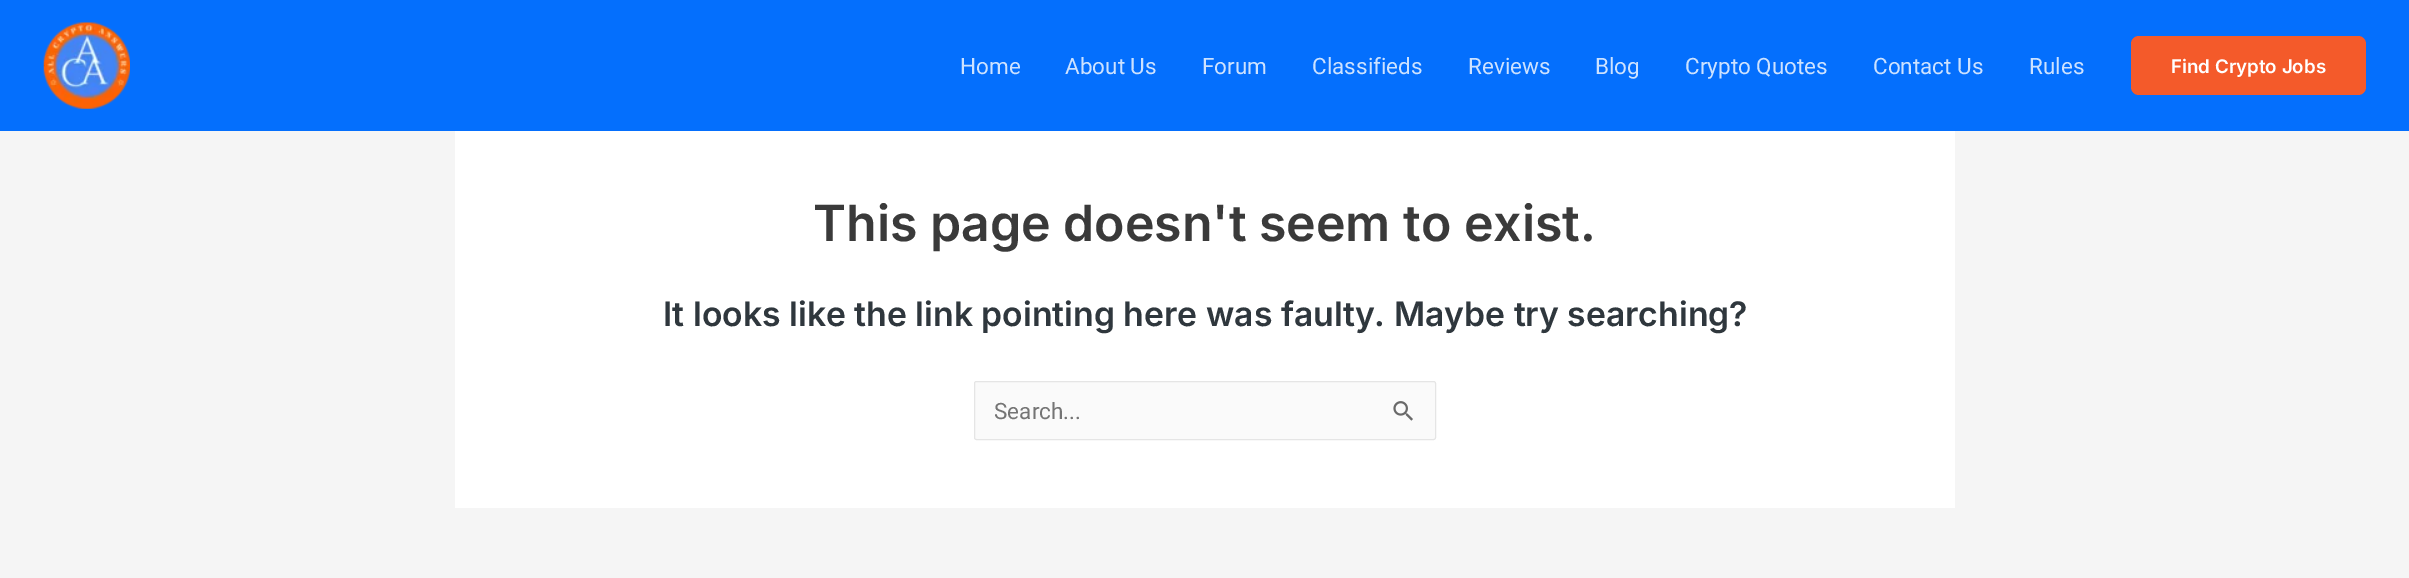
%!PS-Adobe-3.0
%%BoundingBox: 0 0 2409 578
%%LanguageLevel: 3
%%Pages: 1
%%EndComments
%%BeginProlog
/rrect { 5 dict begin { /r /h /w /y /x } { exch def } forall
  x r add y moveto x w add y 2 copy h add r arct x w add y h add x 1 index r arct
  x y h add x y r arct x y 2 copy exch w add exch r arct closepath end } def
/drawimage { 5 dict begin { /h /w /y /x /name } { exch def } forall
  gsave x y translate w h scale
  w h 8 [w 0 0 h 0 0] name (r) file false 3 colorimage grestore end } def
%%EndProlog
%%BeginSetup
<< /PageSize [2409 578] >> setpagedevice
%%EndSetup
%%Page: 1 1
0 578 translate 1 -1 scale
4 setmiterlimit
0.961 setgray
0 0 2409 578 rectfill
0.016 0.435 0.992 setrgbcolor
0 0 2409 131 rectfill
(images/1.raw) 43 22 87 87 drawimage
0.957 0.353 0.165 setrgbcolor
2131 36 235 59 8 rrect fill
1 setgray
455 131 1500 377 rectfill
0.98 setgray
974.5 381.5 461 58 2 rrect gsave fill grestore
0.898 setgray
stroke
(images/2.raw) 1393 401 20 20 drawimage
/Roboto-Regular [22.5 0 0 -22.5 0 0] selectfont
0.804 0.886 1 setrgbcolor
960 74 moveto (Home) show
1065 74 moveto (About Us) show
1202 74 moveto (Forum) show
1312 74 moveto (Classifieds) show
1468 74 moveto (Reviews) show
1595 74 moveto (Blog) show
1685 74 moveto (Crypto Quotes) show
1873 74 moveto (Contact Us) show
2029 74 moveto (Rules) show
/Inter-SemiBold [18.75 0 0 -18.75 0 0] selectfont
1 setgray
2171 73 moveto (Find Crypto Jobs) show
/Inter-SemiBold [50 0 0 -50 0 0] selectfont
0.227 setgray
813 241 moveto (This page doesn't seem to exist.) show
/Inter-SemiBold [33.75 0 0 -33.75 0 0] selectfont
0.184 0.216 0.239 setrgbcolor
663 326 moveto (It looks like the link pointing here was faulty. Maybe try searching?) show
/Roboto-Regular [22.5 0 0 -22.5 0 0] selectfont
0.459 setgray
994 419 moveto (Search...) show
showpage
%%EOF
